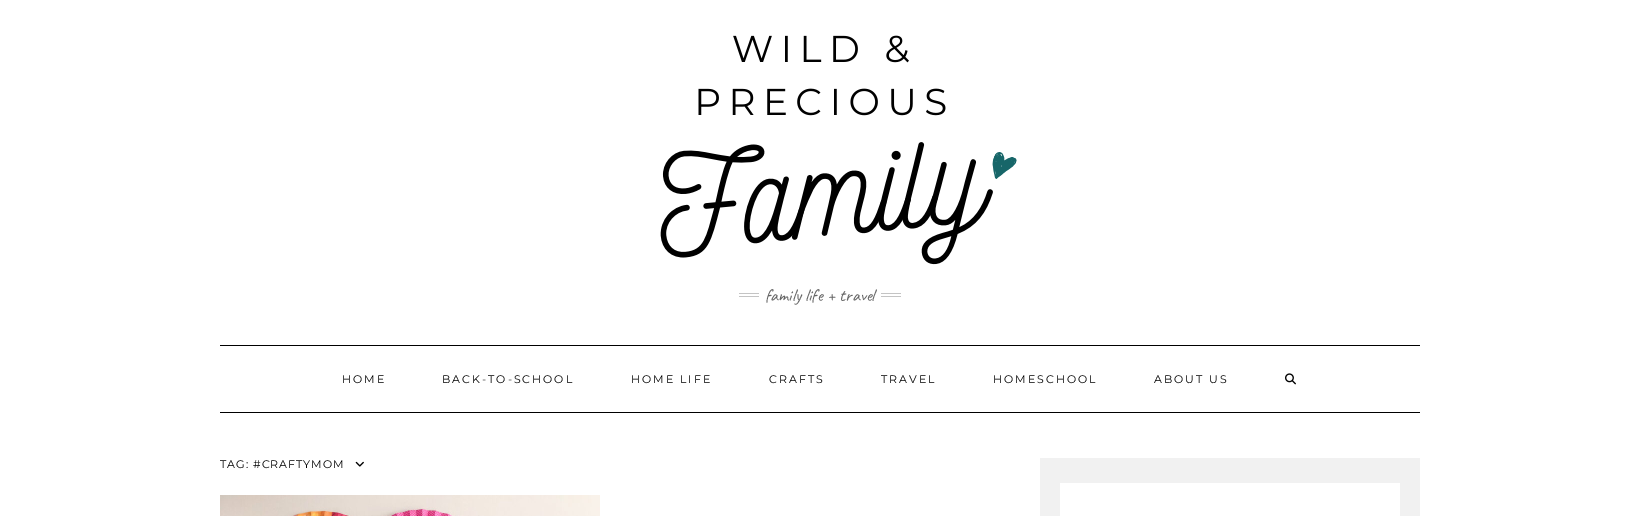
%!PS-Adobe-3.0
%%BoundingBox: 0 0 1640 516
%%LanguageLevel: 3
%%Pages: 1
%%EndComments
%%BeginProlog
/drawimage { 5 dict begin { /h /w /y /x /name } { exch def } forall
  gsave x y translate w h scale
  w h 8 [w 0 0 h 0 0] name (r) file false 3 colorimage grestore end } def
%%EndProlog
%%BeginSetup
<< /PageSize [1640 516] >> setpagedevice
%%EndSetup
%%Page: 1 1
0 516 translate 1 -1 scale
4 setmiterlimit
1 setgray
0 0 1640 516 rectfill
(images/1.raw) 660 35 357 230 drawimage
0.769 setgray
739 293 20 1 rectfill
739 296 20 1 rectfill
881 293 20 1 rectfill
881 296 20 1 rectfill
0 setgray
220 345 1200 1 rectfill
220 412 1200 1 rectfill
(images/2.raw) 1285 373 11 12 drawimage
(images/3.raw) 355 461 9 6 drawimage
(images/4.raw) 220 495 380 21 drawimage
0.945 setgray
1040 458 380 58 rectfill
1 setgray
1060 483 340 33 rectfill
/Caveat-Regular [18 0 0 -18 0 0] selectfont
0.392 setgray
765 301 moveto (family life) show
827 301 moveto (+ travel) show
/Montserrat-Regular [11 0 0 -11 0 0] selectfont
0 setgray
342 383 moveto 2 0 (HOME) ashow
442 383 moveto 2 0 (BACK-TO-SCHOOL) ashow
631 383 moveto 2 0 (HOME LIFE) ashow
769 383 moveto 2 0 (CRAFTS) ashow
881 383 moveto 2 0 (TRAVEL) ashow
993 383 moveto 2 0 (HOMESCHOOL) ashow
1154 383 moveto 2 0 (ABOUT US) ashow
220 468 moveto 1 0 (TAG: #CRAFTYMOM) ashow
showpage
%%EOF
